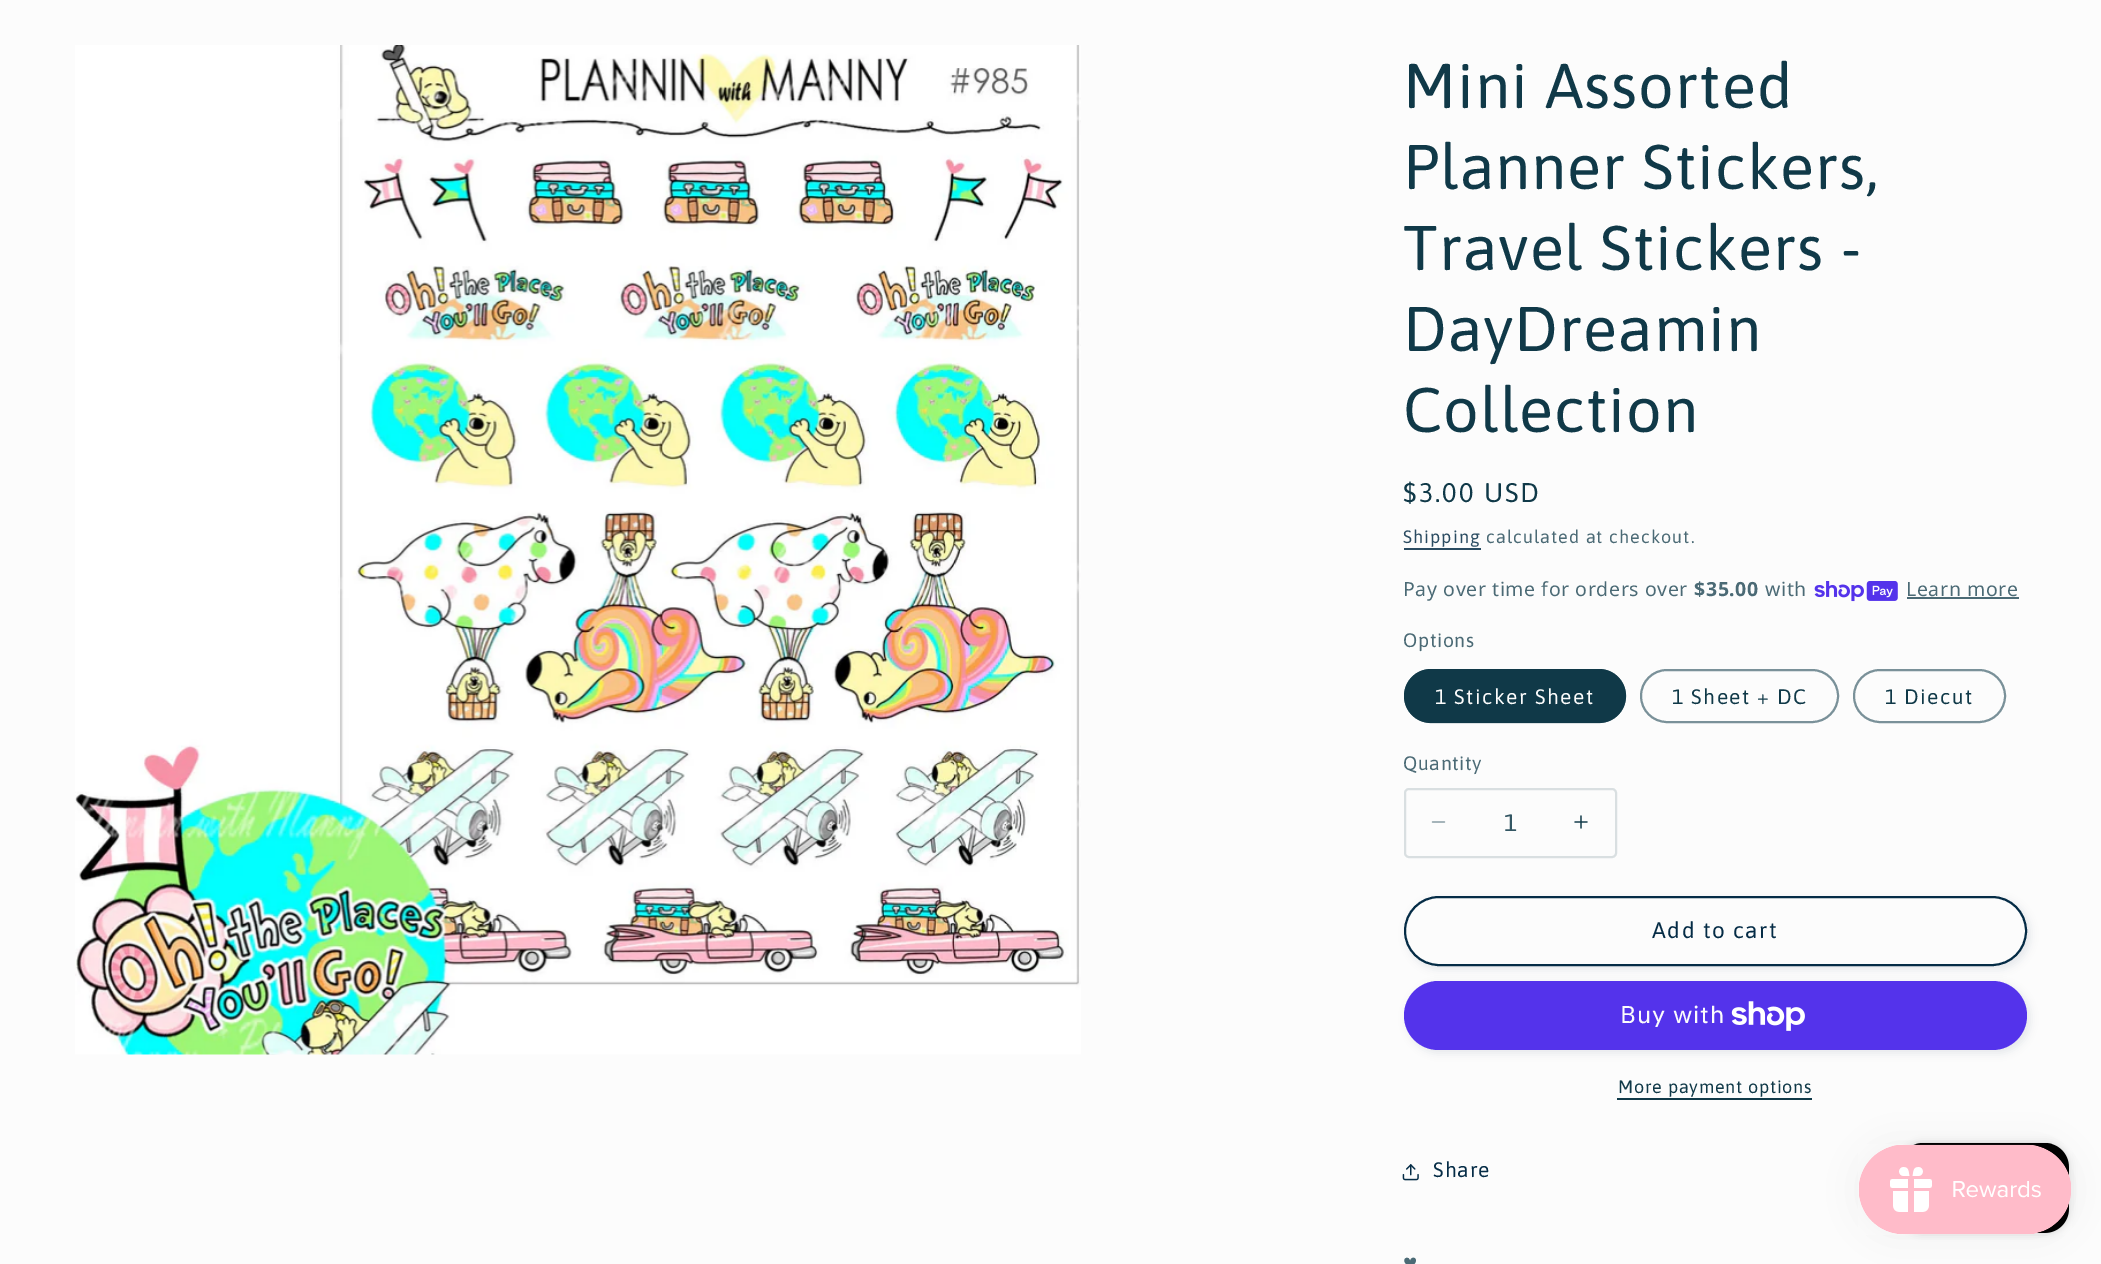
%!PS-Adobe-3.0
%%BoundingBox: 0 0 2101 1264
%%LanguageLevel: 3
%%Pages: 1
%%EndComments
%%BeginProlog
/setalpha { dup .setfillconstantalpha .setstrokeconstantalpha } def
/rrect { 5 dict begin { /r /h /w /y /x } { exch def } forall
  x r add y moveto x w add y 2 copy h add r arct x w add y h add x 1 index r arct
  x y h add x y r arct x y 2 copy exch w add exch r arct closepath end } def
/softshadow { 12 dict begin { /a /b /q /h /w /y /x } { exch def } forall gsave /was 0 def
  9 -2 -9 { dup b mul 4 div /e exch def 1 sub .425 mul 2.718 exch exp 1 add a .99 .min exch div /now exch def
    1 1 now sub 1 was sub div sub setalpha /was now def
    w h .min e 2 mul add 0 gt { x e sub y e sub w e 2 mul add h e 2 mul add
      q e add b .6 mul add w h .min 2 div e add .min 0 .max rrect fill } if } for grestore end } def
/drawimage { 5 dict begin { /h /w /y /x /name } { exch def } forall
  gsave x y translate w h scale
  w h 8 [w 0 0 h 0 0] name (r) file false 3 colorimage grestore end } def
%%EndProlog
%%BeginSetup
<< /PageSize [2101 1264] /PageUsesTransparency true >> setpagedevice
%%EndSetup
%%Page: 1 1
0 .pushpdf14devicefilter
0 1264 translate 1 -1 scale
4 setmiterlimit
0.988 setgray
0 0 2101 1264 rectfill
(images/1.raw) 75 45 1006 1010 drawimage
0.165 0.294 0.38 setrgbcolor
1404 548 77 2 rectfill
(images/2.raw) 1814 581 84 21 drawimage
0.294 0.416 0.459 setrgbcolor
1907 597 112 2 rectfill
0.063 0.224 0.282 setrgbcolor
1404 669 222 54 27 rrect fill
0.55 setalpha
2 setlinewidth
1405 670 220 52 26 rrect stroke
1 setalpha
0.478 0.569 0.6 setrgbcolor
1641 670 197 52 26 rrect stroke
1854 670 151 52 26 rrect stroke
(images/3.raw) 1431 821 15 2 drawimage
(images/4.raw) 1574 815 14 14 drawimage
0.851 0.875 0.882 setrgbcolor
1405 789 211 68 4 rrect stroke
0.063 0.224 0.282 setrgbcolor
1407 899 623 70 35 4 0.1 softshadow
0.988 setgray
1404 896 623 70 35 rrect fill
1405 897 621 68 34 rrect stroke
0.02 0.173 0.275 setrgbcolor
1405 897 621 68 34 rrect stroke
0.063 0.224 0.282 setrgbcolor
1407 984 623 69 34.5 4 0.1 softshadow
0.329 0.2 0.922 setrgbcolor
1404 981 623 69 34.5 rrect fill
(images/5.raw) 1731 1001 74 30 drawimage
0.063 0.224 0.282 setrgbcolor
1617 1098 195 2 rectfill
(images/6.raw) 1402 1164 17 17 drawimage
0 setgray
1899 1143 170 90 24 4 0.15 softshadow
1899 1143 170 90 24 rrect fill
1859 1145 213 90 45 19 0.05 softshadow
(images/7.raw) 1858 1144 214 91 drawimage
/Asap-Regular [63 0 0 -63 0 0] selectfont
0.063 0.224 0.282 setrgbcolor
1403 108 moveto 1 0 (Mini Assorted) ashow
1403 189 moveto 1 0 (Planner Stickers,) ashow
1403 270 moveto 1 0 (Travel Stickers -) ashow
1403 351 moveto 1 0 (DayDreamin) ashow
1403 432 moveto 1 0 (Collection) ashow
/Asap-Regular [27 0 0 -27 0 0] selectfont
1403 502 moveto 2 0 ($3.00 USD) ashow
/Asap-Regular [18 0 0 -18 0 0] selectfont
0.165 0.294 0.38 setrgbcolor
1403 543 moveto 1.05 0 (Shipping) ashow
0.294 0.416 0.459 setrgbcolor
1486 543 moveto 1.05 0 (calculated at checkout.) ashow
/NotoSans-Regular [19.5 0 0 -19.5 0 0] selectfont
1403 596 moveto 0.6 0 (Pay over time for orders over) ashow
/NotoSans-Bold [19.5 0 0 -19.5 0 0] selectfont
1694 596 moveto 0.6 0 ($35.00) ashow
/NotoSans-Regular [19.5 0 0 -19.5 0 0] selectfont
1765 596 moveto 0.6 0 (with) ashow
1906 596 moveto 0.6 0 (Learn more) ashow
/Asap-Regular [19.5 0 0 -19.5 0 0] selectfont
1403 647 moveto 0.6 0 (Options) ashow
/Asap-Regular [21 0 0 -21 0 0] selectfont
0.988 setgray
1435 704 moveto 1.5 0 (1 Sticker Sheet) ashow
0.063 0.224 0.282 setrgbcolor
1672 704 moveto 1.5 0 (1 Sheet + DC) ashow
1885 704 moveto 1.5 0 (1 Diecut) ashow
/Asap-Regular [19.5 0 0 -19.5 0 0] selectfont
0.294 0.416 0.459 setrgbcolor
1403 770 moveto 0.6 0 (Quantity) ashow
/Asap-Regular [24 0 0 -24 0 0] selectfont
0.2 0.337 0.388 setrgbcolor
1504 831 moveto (1) show
/Asap-Regular [22.5 0 0 -22.5 0 0] selectfont
0.02 0.173 0.275 setrgbcolor
1652 938 moveto 1.5 0 (Add to cart) ashow
/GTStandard-Regular [24 0 0 -24 0 0] selectfont
0.988 setgray
1620 1023 moveto 1 0 (Buy with) ashow
/Asap-Regular [18 0 0 -18 0 0] selectfont
0.063 0.224 0.282 setrgbcolor
1618 1093 moveto 0.75 0 (More payment options) ashow
/Asap-Regular [21 0 0 -21 0 0] selectfont
0.02 0.173 0.275 setrgbcolor
1433 1177 moveto 1 0 (Share) ashow
/LiberationSans-Regular [24 0 0 -24 0 0] selectfont
0.294 0.416 0.459 setrgbcolor
1403 1271 moveto 1 0 (♥) ashow
.poppdf14devicefilter showpage
%%EOF
